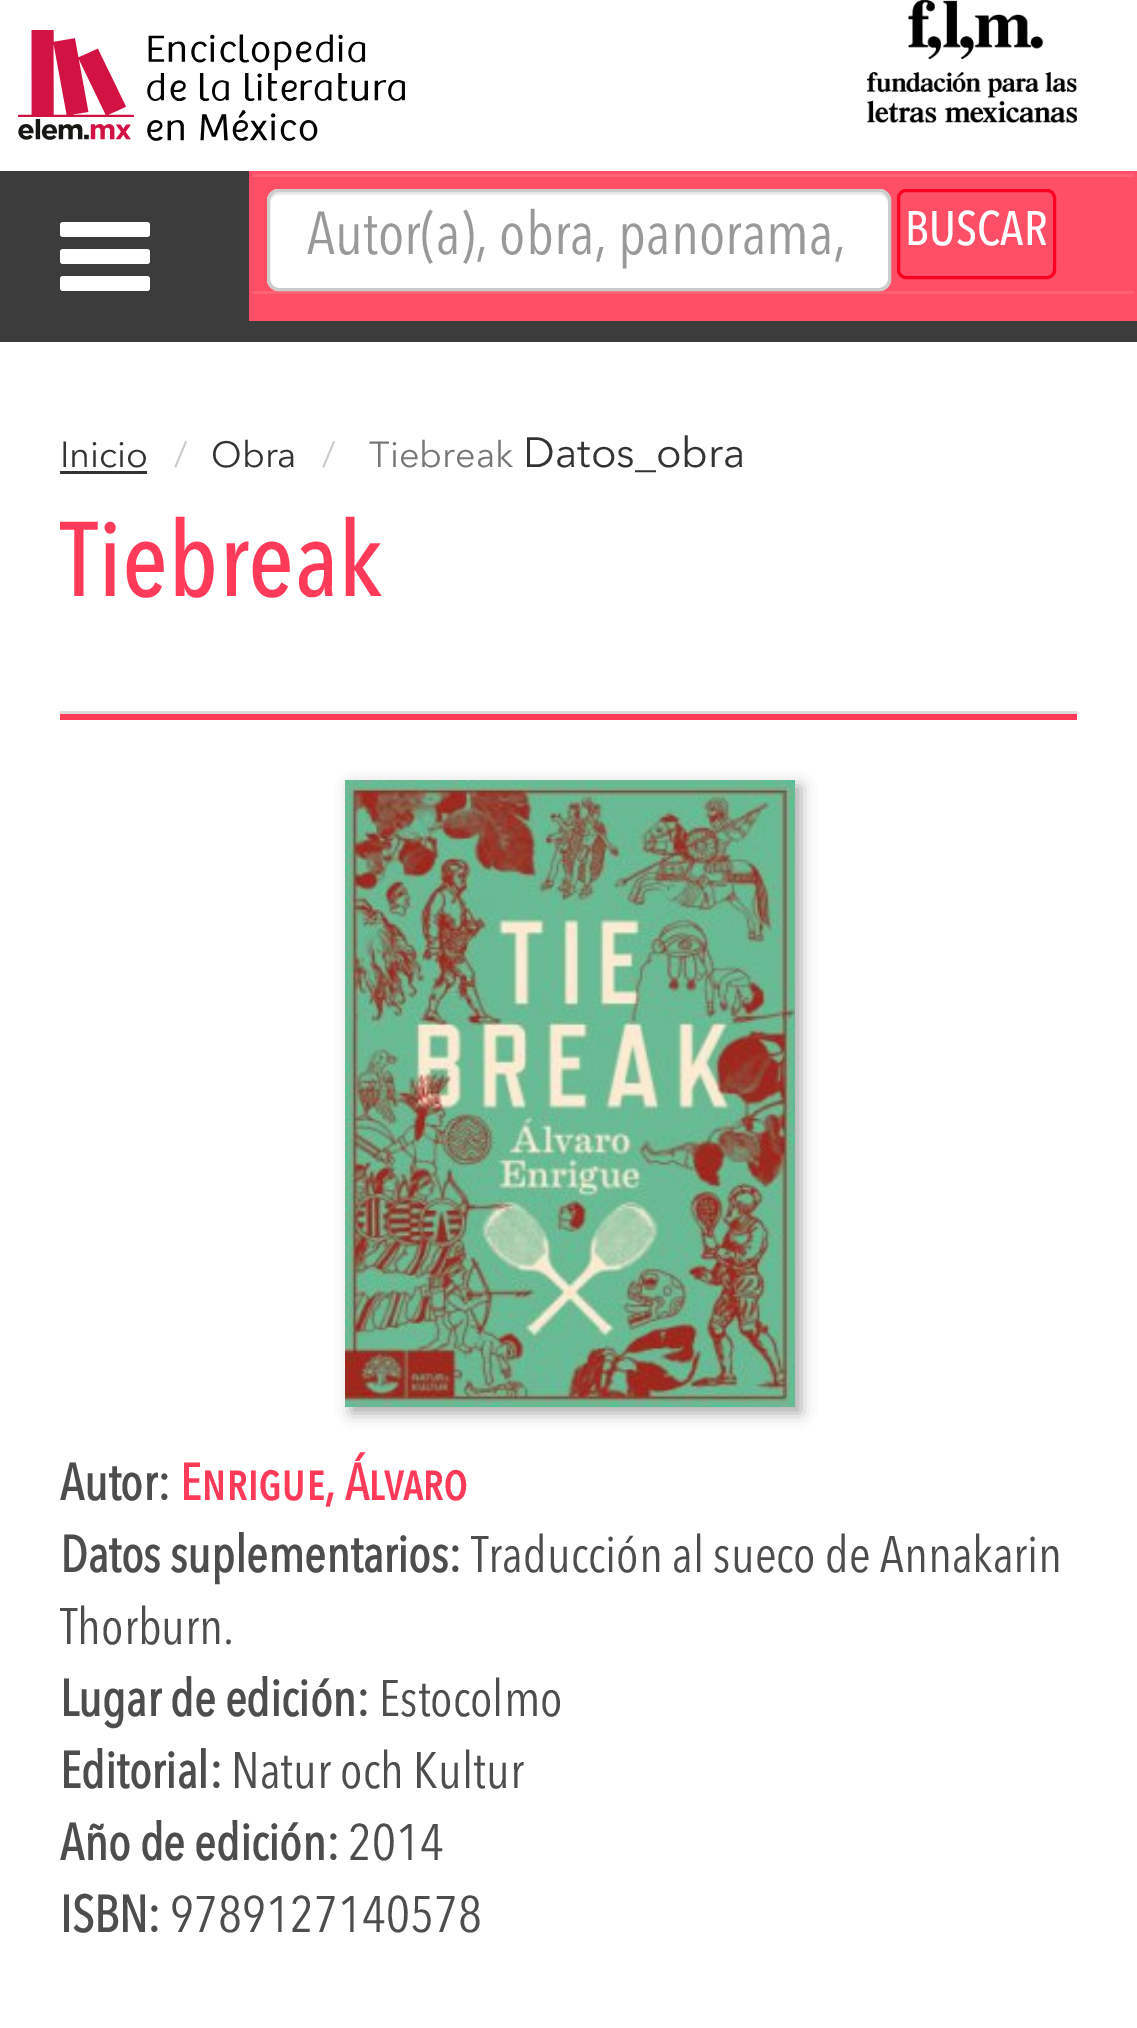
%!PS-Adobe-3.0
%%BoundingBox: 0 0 1137 2028
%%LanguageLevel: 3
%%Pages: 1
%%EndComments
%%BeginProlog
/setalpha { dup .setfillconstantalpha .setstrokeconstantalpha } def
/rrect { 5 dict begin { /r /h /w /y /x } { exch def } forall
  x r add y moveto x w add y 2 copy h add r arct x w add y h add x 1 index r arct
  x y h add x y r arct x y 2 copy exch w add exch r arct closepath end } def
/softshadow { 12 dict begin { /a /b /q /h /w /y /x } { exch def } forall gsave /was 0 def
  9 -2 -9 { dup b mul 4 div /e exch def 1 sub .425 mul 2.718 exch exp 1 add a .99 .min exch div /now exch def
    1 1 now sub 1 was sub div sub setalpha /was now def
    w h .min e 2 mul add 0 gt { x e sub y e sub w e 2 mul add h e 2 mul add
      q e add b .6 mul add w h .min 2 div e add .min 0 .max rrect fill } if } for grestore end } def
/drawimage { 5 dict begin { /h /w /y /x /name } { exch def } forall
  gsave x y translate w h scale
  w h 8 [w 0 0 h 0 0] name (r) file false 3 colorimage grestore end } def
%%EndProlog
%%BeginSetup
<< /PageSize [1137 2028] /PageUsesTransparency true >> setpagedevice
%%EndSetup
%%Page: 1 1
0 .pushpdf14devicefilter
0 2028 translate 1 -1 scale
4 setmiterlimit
1 setgray
0 0 1137 2028 rectfill
(images/1.raw) 18 30 387 111 drawimage
(images/2.raw) 867 0 210 123 drawimage
0.235 setgray
0 171 1137 171 rectfill
1 setgray
60 222 90 15 3 rrect fill
60 249 90 15 3 rrect fill
60 276 90 15 3 rrect fill
1 0.31 0.4 setrgbcolor
249 171 888 150 rectfill
1 0.38 0.459 setrgbcolor
252 291 882 3 rectfill
252 174 882 3 rectfill
1 setgray
267 189 624 102 12 rrect fill
0.925 setgray
newpath 279 195 moveto 879 195 lineto 884 195 888 199 888 204 curveto 888 201 lineto 888 196 884 192 879 192 curveto 279 192 lineto 274 192 270 196 270 201 curveto 270 204 lineto 270 199 274 195 279 195 curveto closepath fill
0.8 setgray
3 setlinewidth
268.5 190.5 621 99 10.5 rrect stroke
0.984 0 0.129 setrgbcolor
898.5 190.5 156 87 7.5 rrect stroke
0.2 setgray
60 471 87 3 rectfill
1 0.231 0.349 setrgbcolor
60 714 1017 6 rectfill
0.867 setgray
60 711 1017 3 rectfill
0.667 setgray
351 786 450 627 0 7.5 1 softshadow
(images/3.raw) 345 780 450 627 drawimage
/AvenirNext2-Regular [60 0 0 -60 0 0] selectfont
0.6 setgray
307 254 moveto (Autor\(a\), obra, panorama,) show
/AvenirNext-Medium [48 0 0 -48 0 0] selectfont
1 setgray
905 245 moveto (BUSCAR) show
/AvenirNext-Regular [36 0 0 -36 0 0] selectfont
0.2 setgray
60 467 moveto (Inicio) show
0.8 setgray
174 467 moveto (/) show
0.2 setgray
211 467 moveto (Obra) show
0.8 setgray
322 467 moveto (/) show
0.467 setgray
369 467 moveto (Tiebreak) show
/AvenirNext-Regular [42 0 0 -42 0 0] selectfont
0.2 setgray
523 467 moveto (Datos_obra) show
/AvenirNext-Medium [105 0 0 -105 0 0] selectfont
1 0.231 0.349 setrgbcolor
60 596 moveto (Tiebreak) show
/AvenirNext-Bold [51 0 0 -51 0 0] selectfont
0.302 setgray
60 1500 moveto (Autor:) show
/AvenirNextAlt-Bold [51 0 0 -51 0 0] selectfont
1 0.231 0.349 setrgbcolor
180 1500 moveto (Enrigue, Álvaro) show
/AvenirNext-Bold [51 0 0 -51 0 0] selectfont
0.302 setgray
60 1572 moveto (Datos suplementarios:) show
/AvenirNext2-Regular [51 0 0 -51 0 0] selectfont
471 1572 moveto (Traducción al sueco de Annakarin) show
60 1644 moveto (Thorburn.) show
/AvenirNext-Bold [51 0 0 -51 0 0] selectfont
60 1716 moveto (Lugar de edición:) show
/AvenirNext2-Regular [51 0 0 -51 0 0] selectfont
379 1716 moveto (Estocolmo) show
/AvenirNext-Bold [51 0 0 -51 0 0] selectfont
60 1788 moveto (Editorial:) show
/AvenirNext2-Regular [51 0 0 -51 0 0] selectfont
231 1788 moveto (Natur och Kultur) show
/AvenirNext-Bold [51 0 0 -51 0 0] selectfont
60 1860 moveto (Año de edición:) show
/AvenirNext2-Regular [51 0 0 -51 0 0] selectfont
348 1860 moveto (2014) show
/AvenirNext-Bold [51 0 0 -51 0 0] selectfont
60 1932 moveto (ISBN:) show
/AvenirNext2-Regular [51 0 0 -51 0 0] selectfont
170 1932 moveto (9789127140578) show
.poppdf14devicefilter showpage
%%EOF
